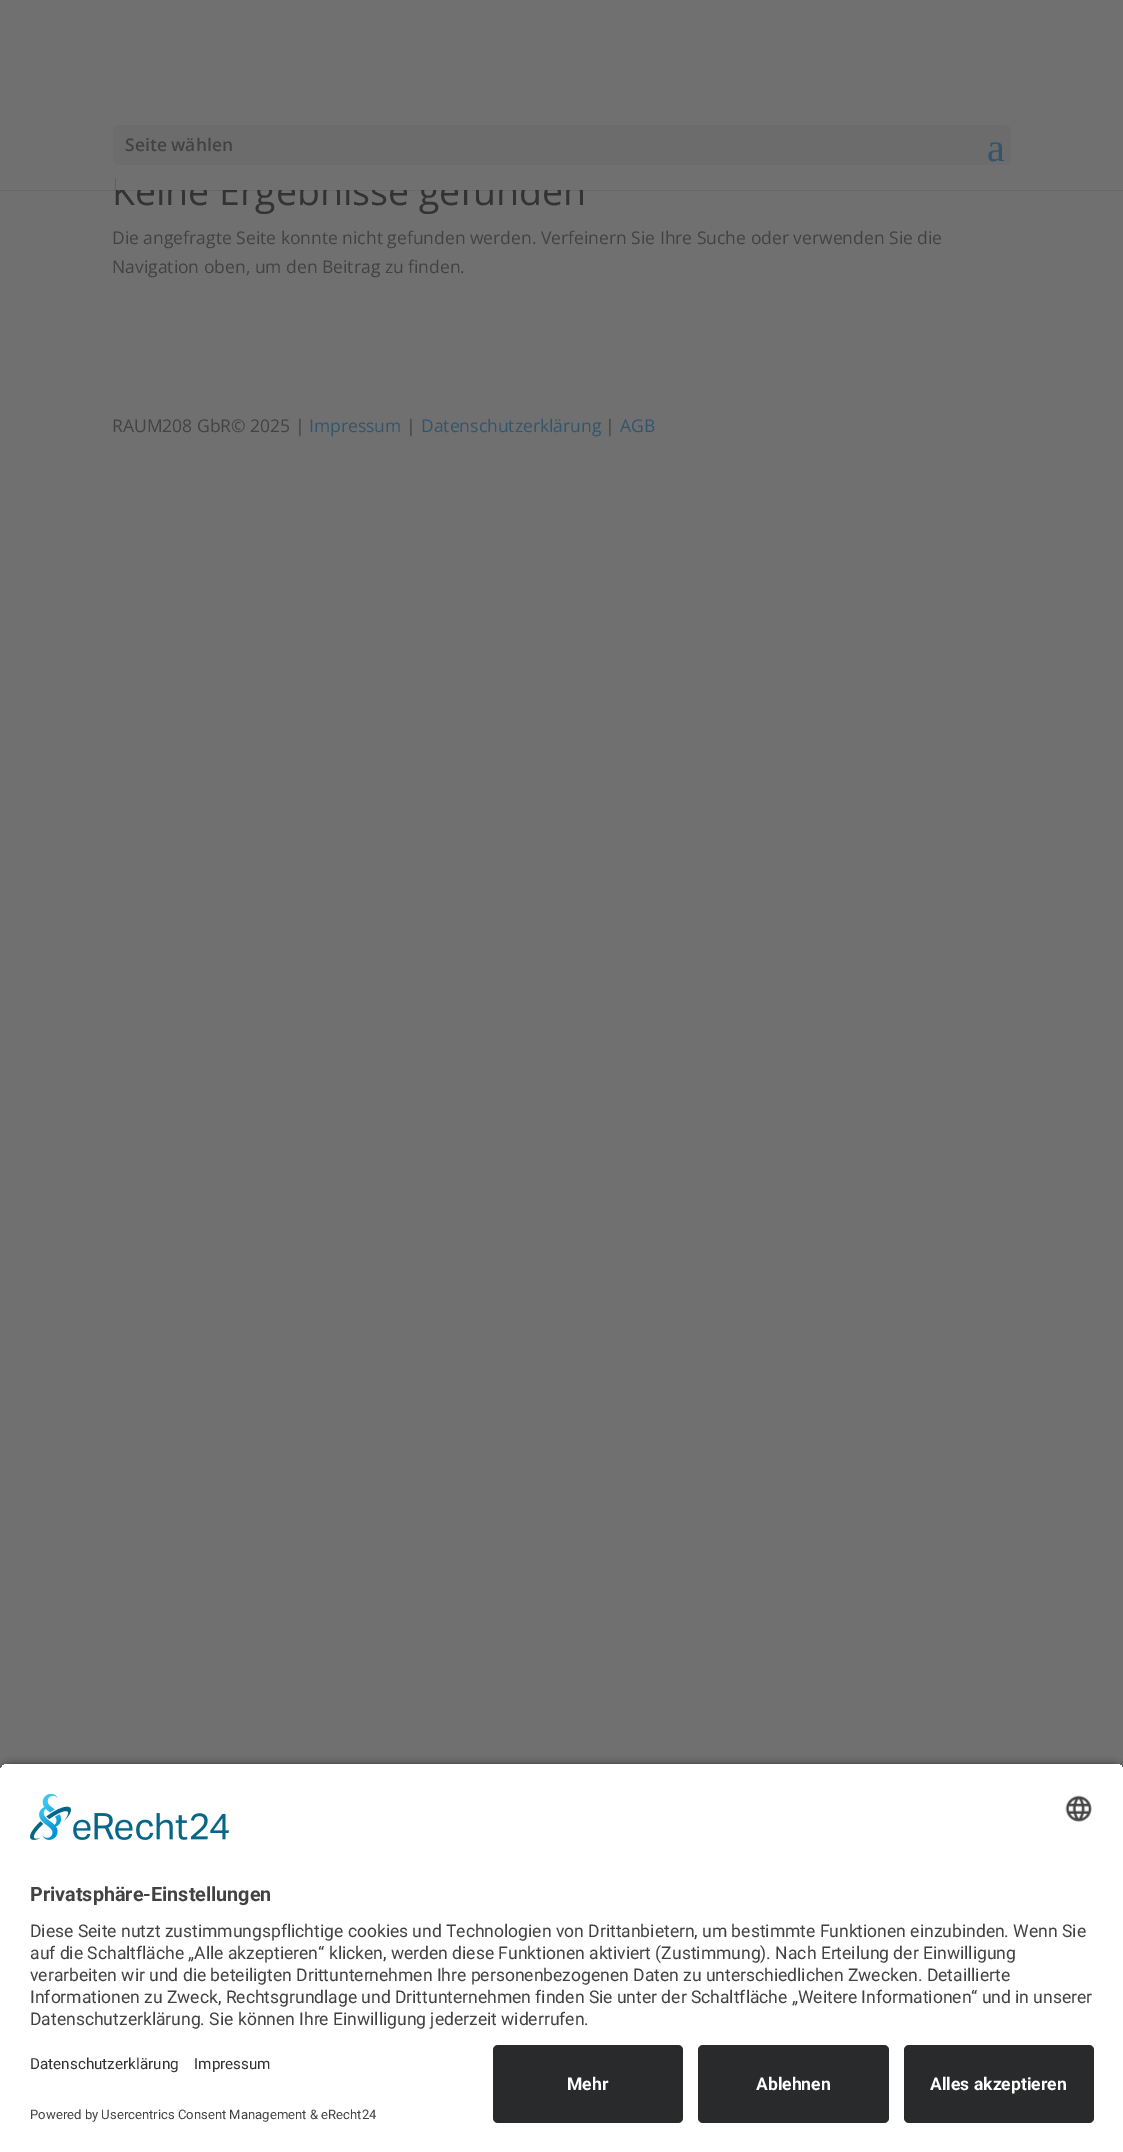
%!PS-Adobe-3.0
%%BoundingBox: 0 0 1123 2152
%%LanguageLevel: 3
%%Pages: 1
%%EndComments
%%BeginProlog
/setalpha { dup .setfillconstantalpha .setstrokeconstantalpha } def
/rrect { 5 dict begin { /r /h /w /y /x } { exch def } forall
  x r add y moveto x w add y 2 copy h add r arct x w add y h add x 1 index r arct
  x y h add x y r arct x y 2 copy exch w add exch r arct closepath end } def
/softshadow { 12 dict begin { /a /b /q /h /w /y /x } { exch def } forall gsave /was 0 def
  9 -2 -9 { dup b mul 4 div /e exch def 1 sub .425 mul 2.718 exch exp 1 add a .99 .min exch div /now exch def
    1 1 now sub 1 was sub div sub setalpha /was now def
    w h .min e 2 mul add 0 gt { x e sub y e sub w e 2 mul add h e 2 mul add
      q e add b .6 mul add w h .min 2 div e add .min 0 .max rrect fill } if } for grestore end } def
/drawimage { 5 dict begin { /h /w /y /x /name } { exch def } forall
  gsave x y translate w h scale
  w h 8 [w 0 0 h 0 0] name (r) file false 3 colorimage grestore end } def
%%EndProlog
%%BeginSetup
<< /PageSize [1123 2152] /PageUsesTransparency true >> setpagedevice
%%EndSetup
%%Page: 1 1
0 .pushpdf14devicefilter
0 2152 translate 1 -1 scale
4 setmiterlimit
0.439 setgray
0 0 1123 2152 rectfill
0.1 setalpha
0.141 setgray
newpath 0 190 moveto 0 191 lineto 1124 191 lineto 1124 1 lineto 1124 190 lineto closepath fill
1 setalpha
0.424 setgray
113 125 898 40 6 rrect fill
0 setgray
0 1766 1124 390 10 4.5 0.8 softshadow
gsave
newpath 10 1763 moveto 1114 1763 lineto 1119.5 1763 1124 1767.5 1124 1773 curveto 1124 2035 lineto 0 2035 lineto 0 1773 lineto 0 1767.5 4.5 1763 10 1763 curveto closepath clip newpath
1 setgray
0 1764 1123 271 rectfill
grestore
(images/1.raw) 30 1794 199 46 drawimage
(images/2.raw) 1065 1795 27 27 drawimage
1 setgray
0 2035 1123 117 rectfill
0.161 0.165 0.169 setrgbcolor
493 2045 190 78 5 rrect fill
698 2045 191 78 5 rrect fill
904 2045 190 78 5 rrect fill
/OpenSans-SemiBold [17.5 0 0 -17.5 0 0] selectfont
0.259 setgray
125 151 moveto (Seite wählen) show
/LiberationSerif-Regular [40 0 0 -40 0 0] selectfont
0.196 0.333 0.424 setrgbcolor
987 161 moveto (a) show
/OpenSans-Regular [37.5 0 0 -37.5 0 0] selectfont
0.2 setgray
112 205 moveto (Keine Ergebnisse gefunden) show
0.439 setgray
116 176 467 14 rectfill
/OpenSans-Regular [17.5 0 0 -17.5 0 0] selectfont
0.259 setgray
112 244 moveto (Die angefragte Seite konnte nicht gefunden werden. Verfeinern Sie Ihre Suche oder verwenden Sie die) show
112 273 moveto (Navigation oben, um den Beitrag zu finden.) show
112 432 moveto (RAUM208 GbR© 2025 |) show
0.196 0.333 0.424 setrgbcolor
309 432 moveto (Impressum) show
0.259 setgray
406 432 moveto (|) show
0.196 0.333 0.424 setrgbcolor
421 432 moveto (Datenschutzerklärung) show
0.259 setgray
605 432 moveto (|) show
0.196 0.333 0.424 setrgbcolor
620 432 moveto (AGB) show
/Roboto-Bold [19.75 0 0 -19.75 0 0] selectfont
0.259 setgray
30 1901 moveto (Privatsphäre-Einstellungen) show
/Roboto-Regular [17.5 0 0 -17.5 0 0] selectfont
30 1937 moveto (Diese Seite nutzt zustimmungspflichtige cookies und Technologien von Drittanbietern, um bestimmte Funktionen einzubinden. Wenn Sie) show
30 1959 moveto (auf die Schaltfläche „Alle akzeptieren“ klicken, werden diese Funktionen aktiviert \(Zustimmung\). Nach Erteilung der Einwilligung) show
30 1981 moveto (verarbeiten wir und die beteiligten Drittunternehmen Ihre personenbezogenen Daten zu unterschiedlichen Zwecken. Detaillierte) show
30 2003 moveto (Informationen zu Zweck, Rechtsgrundlage und Drittunternehmen finden Sie unter der Schaltfläche „Weitere Informationen“ und in unserer) show
30 2025 moveto (Datenschutzerklärung. Sie können Ihre Einwilligung jederzeit widerrufen.) show
/Roboto-Regular [15.25 0 0 -15.25 0 0] selectfont
0.2 setgray
30 2069 moveto (Datenschutzerklärung) show
194 2069 moveto (Impressum) show
/Roboto-Regular [13.1 0 0 -13.1 0 0] selectfont
0.259 setgray
30 2119 moveto (Powered by Usercentrics Consent Management & eRecht24) show
/Roboto-Bold [17.5 0 0 -17.5 0 0] selectfont
1 setgray
567 2090 moveto (Mehr) show
756 2090 moveto (Ablehnen) show
930 2090 moveto (Alles akzeptieren) show
.poppdf14devicefilter showpage
%%EOF
